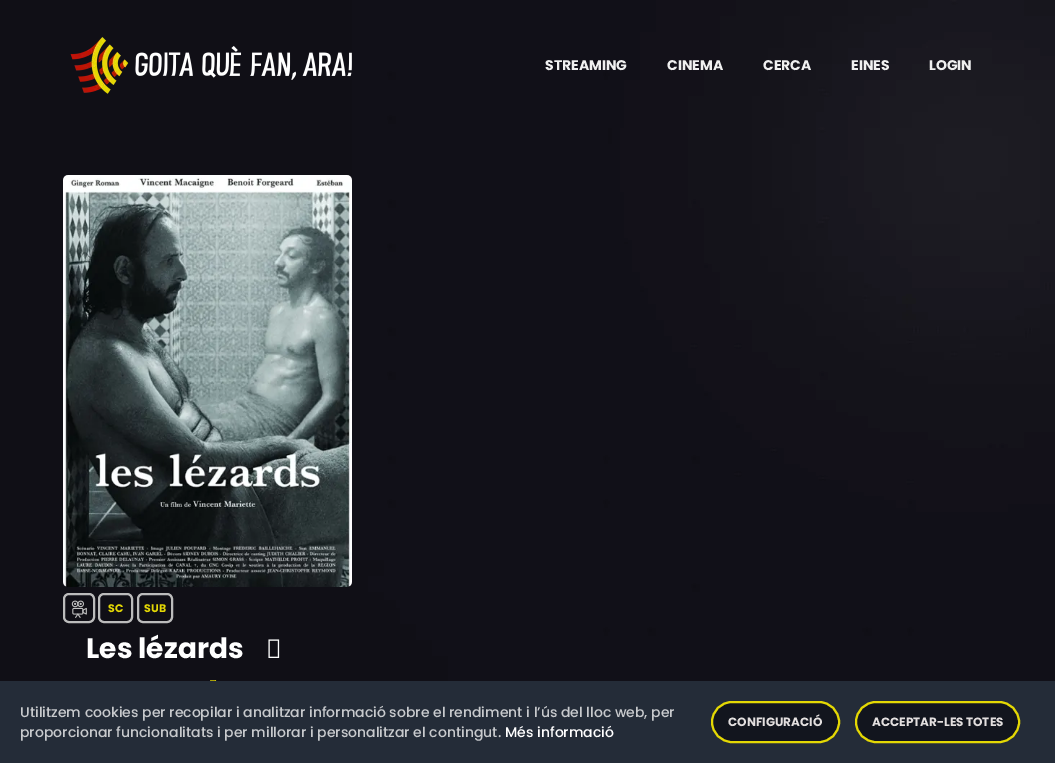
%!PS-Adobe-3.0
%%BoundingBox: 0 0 1055 763
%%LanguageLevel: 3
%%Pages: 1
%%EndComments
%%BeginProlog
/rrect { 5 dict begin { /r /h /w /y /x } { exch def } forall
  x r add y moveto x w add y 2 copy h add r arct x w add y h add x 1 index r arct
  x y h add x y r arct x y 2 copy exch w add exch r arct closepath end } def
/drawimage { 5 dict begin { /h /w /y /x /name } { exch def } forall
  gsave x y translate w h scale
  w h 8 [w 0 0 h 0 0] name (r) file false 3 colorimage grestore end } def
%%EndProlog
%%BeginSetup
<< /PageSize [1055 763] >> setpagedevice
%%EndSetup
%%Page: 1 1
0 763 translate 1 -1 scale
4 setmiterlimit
1 setgray
0 0 1055 763 rectfill
(images/1.raw) 0 0 1055 681 drawimage
(images/2.raw) 70 37 282 57 drawimage
(images/3.raw) 63 175 289 412 drawimage
0.737 setgray
2 setlinewidth
64 594 30 28 5 rrect stroke
(images/4.raw) 71 600 16 18 drawimage
99 594 33 28 5 rrect stroke
138 594 34 28 5 rrect stroke
(images/5.raw) 268 639 12 19 drawimage
(images/6.raw) 210 680 7 1 drawimage
0.141 0.173 0.22 setrgbcolor
0 681 1055 82 rectfill
0.071 0.082 0.118 setrgbcolor
712 702 127 40 20 rrect gsave fill grestore
0.894 0.847 0.016 setrgbcolor
stroke
0.071 0.082 0.118 setrgbcolor
856 702 163 40 20 rrect gsave fill grestore
0.894 0.847 0.016 setrgbcolor
stroke
/Poppins-Bold [14 0 0 -14 0 0] selectfont
0.941 setgray
545 70 moveto (STREAMING) show
667 70 moveto (CINEMA) show
763 70 moveto (CERCA) show
851 70 moveto (EINES) show
929 70 moveto (LOGIN) show
/Poppins-Bold [11 0 0 -11 0 0] selectfont
0.894 0.847 0.016 setrgbcolor
108 612 moveto (SC) show
144 612 moveto (SUB) show
/Poppins-Bold [28 0 0 -28 0 0] selectfont
1 setgray
86 658 moveto (Les lézards) show
/Poppins-Medium [14 0 0 -14 0 0] selectfont
0.784 0.792 0.804 setrgbcolor
20 717 moveto (Utilitzem cookies per recopilar i analitzar informació sobre el rendiment i l’ús del lloc web, per) show
20 737 moveto (proporcionar funcionalitats i per millorar i personalitzar el contingut.) show
1 setgray
505 737 moveto (Més informació) show
/Poppins-Bold [12 0 0 -12 0 0] selectfont
0.89 0.875 0.875 setrgbcolor
728 726 moveto (CONFIGURACIÓ) show
872 726 moveto (ACCEPTAR-LES TOTES) show
showpage
%%EOF
